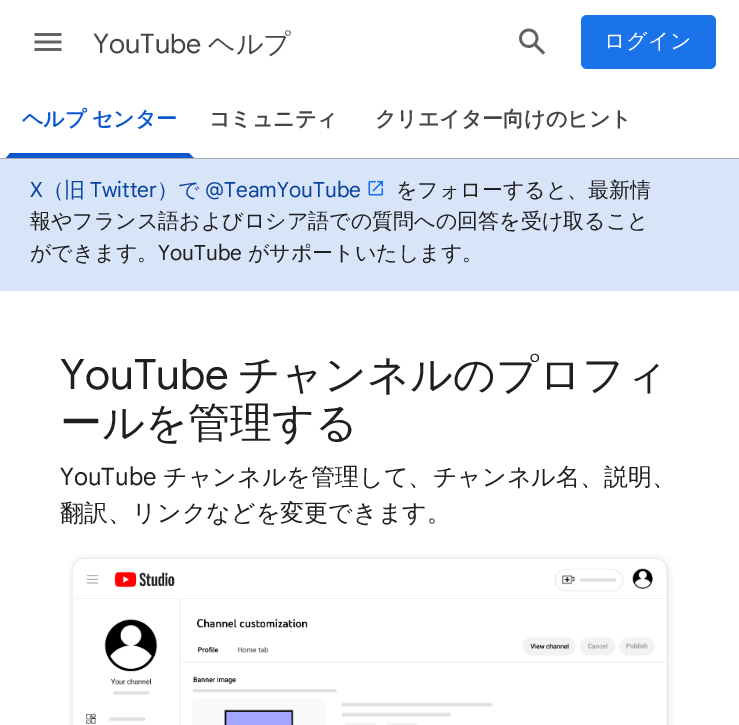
%!PS-Adobe-3.0
%%BoundingBox: 0 0 739 725
%%LanguageLevel: 3
%%Pages: 1
%%EndComments
%%BeginProlog
/rrect { 5 dict begin { /r /h /w /y /x } { exch def } forall
  x r add y moveto x w add y 2 copy h add r arct x w add y h add x 1 index r arct
  x y h add x y r arct x y 2 copy exch w add exch r arct closepath end } def
/drawimage { 5 dict begin { /h /w /y /x /name } { exch def } forall
  gsave x y translate w h scale
  w h 8 [w 0 0 h 0 0] name (r) file false 3 colorimage grestore end } def
%%EndProlog
%%BeginSetup
<< /PageSize [739 725] >> setpagedevice
%%EndSetup
%%Page: 1 1
0 725 translate 1 -1 scale
4 setmiterlimit
1 setgray
0 0 739 725 rectfill
(images/1.raw) 34 33 28 18 drawimage
(images/2.raw) 519 28 27 27 drawimage
0.102 0.451 0.91 setrgbcolor
581 15 135 54 6 rrect fill
0.663 0.675 0.667 setrgbcolor
0 158 739 1 rectfill
0.043 0.341 0.816 setrgbcolor
newpath 194 158 moveto 6 158 lineto 10 153 lineto 189 153 lineto closepath fill
0.847 0.894 0.973 setrgbcolor
0 159 739 132 rectfill
(images/3.raw) 368 180 16 16 drawimage
(images/4.raw) 68 554 605 171 drawimage
/GoogleSans-Regular [27 0 0 -27 0 0] selectfont
0.267 0.278 0.275 setrgbcolor
93 53 moveto (YouTube) show
/WenQuanYiZenHei-Medium [27 0 0 -27 0 0] selectfont
208 53 moveto (ヘルプ) show
/WenQuanYiZenHei-Medium [21 0 0 -21 0 0] selectfont
1 setgray
604 48 moveto 0.5 0 (ログイン) ashow
/WenQuanYiZenHei-Bold [21 0 0 -21 0 0] selectfont
0.043 0.341 0.816 setrgbcolor
22 126 moveto -1 0 32 (ヘルプ センター) widthshow
0.267 0.278 0.275 setrgbcolor
209 126 moveto (コミュニティ) show
375 126 moveto (クリエイター向けのヒント) show
/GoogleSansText-Regular [21 0 0 -21 0 0] selectfont
0.031 0.259 0.627 setrgbcolor
30 197 moveto (X) show
/WenQuanYiZenHei-Medium [21 0 0 -21 0 0] selectfont
43 197 moveto (（旧) show
/GoogleSansText-Regular [21 0 0 -21 0 0] selectfont
90 197 moveto (Twitter) show
/WenQuanYiZenHei-Medium [21 0 0 -21 0 0] selectfont
157 197 moveto (）で) show
/GoogleSansText-Regular [21 0 0 -21 0 0] selectfont
205 197 moveto (@TeamYouTube) show
/WenQuanYiZenHei-Medium [21 0 0 -21 0 0] selectfont
0.122 setgray
396 197 moveto (をフォローすると、最新情) show
30 228 moveto (報やフランス語およびロシア語での質問への回答を受け取ること) show
30 260 moveto (ができます。) show
/GoogleSansText-Regular [21 0 0 -21 0 0] selectfont
158 260 moveto (YouTube) show
/WenQuanYiZenHei-Medium [21 0 0 -21 0 0] selectfont
248 260 moveto (がサポートいたします。) show
/GoogleSans-Regular [42 0 0 -42 0 0] selectfont
60 389 moveto (YouTube) show
/WenQuanYiZenHei-Medium [42 0 0 -42 0 0] selectfont
238 389 moveto (チャンネルのプロフィ) show
60 437 moveto (ールを管理する) show
/GoogleSansText-Regular [24 0 0 -24 0 0] selectfont
60 485 moveto 0.1 0 (YouTube) ashow
/WenQuanYiZenHei-Medium [24 0 0 -24 0 0] selectfont
163 485 moveto 0.1 0 (チャンネルを管理して、チャンネル名、説明、) ashow
60 521 moveto 0.1 0 (翻訳、リンクなどを変更できます。) ashow
showpage
%%EOF
